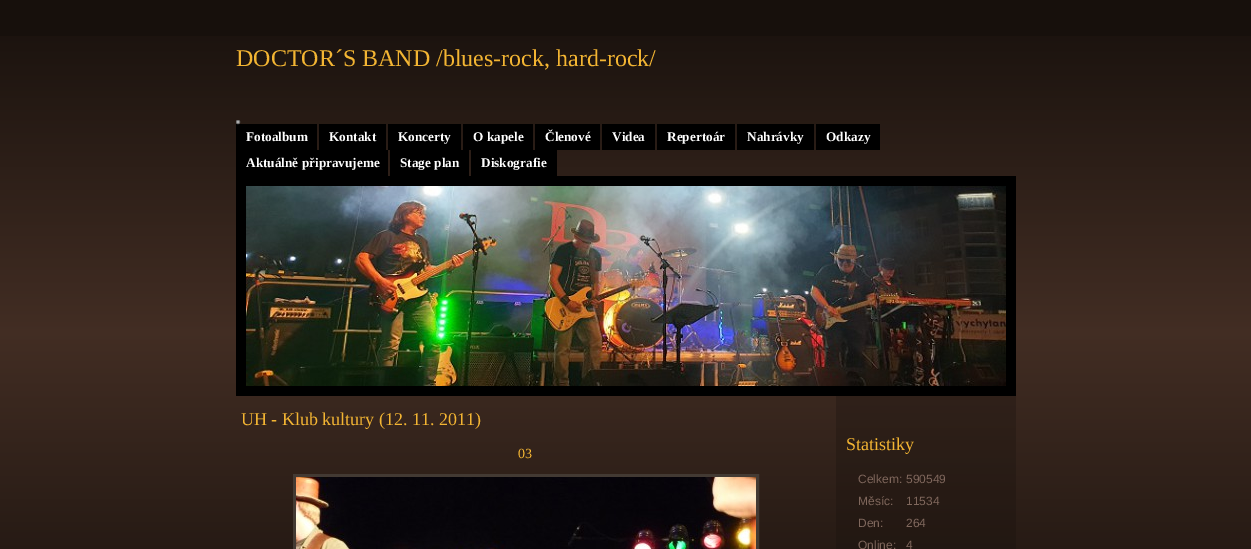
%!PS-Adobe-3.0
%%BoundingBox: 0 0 1251 549
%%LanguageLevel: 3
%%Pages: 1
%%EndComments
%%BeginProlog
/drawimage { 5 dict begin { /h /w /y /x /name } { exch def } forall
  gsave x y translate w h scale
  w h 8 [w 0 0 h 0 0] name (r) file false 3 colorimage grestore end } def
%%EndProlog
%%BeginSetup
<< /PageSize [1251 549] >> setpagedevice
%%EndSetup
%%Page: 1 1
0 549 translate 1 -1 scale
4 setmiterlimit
0.09 0.063 0.047 setrgbcolor
0 0 1251 549 rectfill
(images/1.raw) 0 36 1251 513 drawimage
0 setgray
236 176 780 220 rectfill
(images/2.raw) 246 186 760 200 drawimage
236 124 81 26 rectfill
319 124 67 26 rectfill
388 124 73 26 rectfill
463 124 70 26 rectfill
535 124 65 26 rectfill
602 124 53 26 rectfill
657 124 78 26 rectfill
737 124 77 26 rectfill
816 124 64 26 rectfill
236 150 152 26 rectfill
390 150 79 26 rectfill
471 150 86 26 rectfill
0.263 0.227 0.2 setrgbcolor
3 setlinewidth
294.5 475.5 463 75 rectstroke
(images/3.raw) 296 477 460 72 drawimage
(images/4.raw) 836 396 180 153 drawimage
0.937 setgray
newpath 238 122 1.5 0 360 arc closepath gsave fill grestore
0.463 setgray
1 setlinewidth
stroke
/LiberationSerif-Regular [24 0 0 -24 0 0] selectfont
0.953 0.71 0.2 setrgbcolor
236 66 moveto (DOCTOR´S BAND /blues-rock, hard-rock/) show
/LiberationSerif-Bold [13.25 0 0 -13.25 0 0] selectfont
1 setgray
246 141 moveto (Fotoalbum) show
329 141 moveto (Kontakt) show
398 141 moveto (Koncerty) show
473 141 moveto (O kapele) show
545 141 moveto (Členové) show
612 141 moveto (Videa) show
667 141 moveto (Repertoár) show
747 141 moveto (Nahrávky) show
826 141 moveto (Odkazy) show
246 167 moveto (Aktuálně připravujeme) show
400 167 moveto (Stage plan) show
481 167 moveto (Diskografie) show
/LiberationSerif-Regular [18 0 0 -18 0 0] selectfont
0.953 0.71 0.2 setrgbcolor
241 425 moveto (UH - Klub kultury \(12. 11. 2011\)) show
/LiberationSerif-Regular [14 0 0 -14 0 0] selectfont
518 458 moveto (03) show
/LiberationSerif-Regular [18 0 0 -18 0 0] selectfont
846 450 moveto (Statistiky) show
/LiberationSans-Regular [12 0 0 -12 0 0] selectfont
0.498 0.404 0.361 setrgbcolor
858 483 moveto (Celkem:) show
906 483 moveto (590549) show
858 505 moveto (Měsíc:) show
906 505 moveto (11534) show
858 527 moveto (Den:) show
906 527 moveto (264) show
858 549 moveto (Online:) show
906 549 moveto (4) show
showpage
%%EOF
